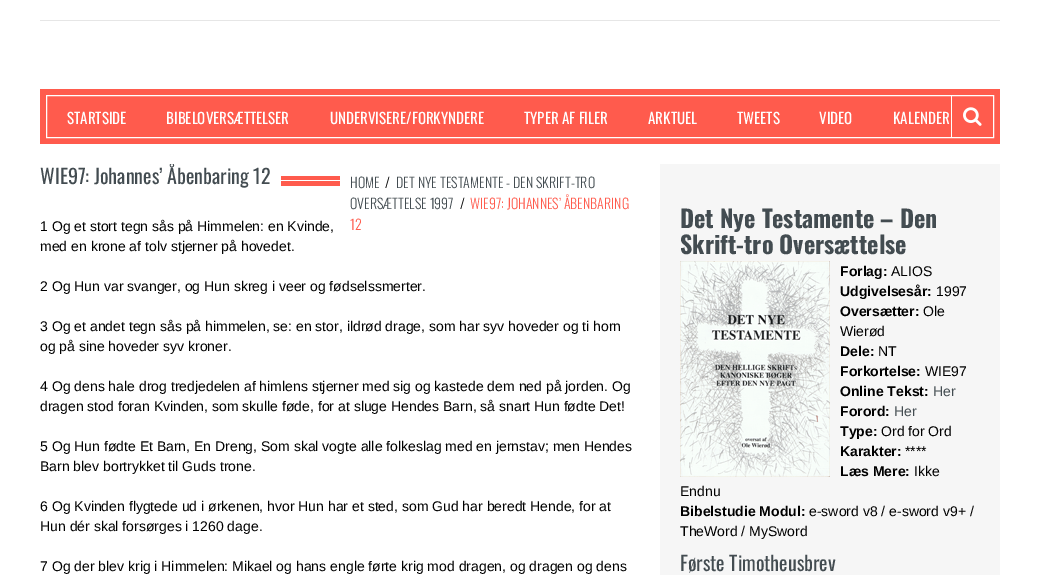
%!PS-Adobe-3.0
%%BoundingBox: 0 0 1040 575
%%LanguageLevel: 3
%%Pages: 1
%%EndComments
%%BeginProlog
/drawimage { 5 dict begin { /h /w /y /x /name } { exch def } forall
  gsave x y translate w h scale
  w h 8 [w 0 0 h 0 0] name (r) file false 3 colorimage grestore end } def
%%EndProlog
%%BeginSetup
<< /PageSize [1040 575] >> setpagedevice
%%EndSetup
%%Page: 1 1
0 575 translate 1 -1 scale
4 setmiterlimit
1 setgray
0 0 1040 575 rectfill
0.902 setgray
40 20 960 1 rectfill
1 0.357 0.302 setrgbcolor
40 89 960 55 rectfill
1 setgray
46.5 95.5 947 42 rectstroke
951 96 1 41 rectfill
(images/1.raw) 963 107 19 19 drawimage
1 0.357 0.302 setrgbcolor
281 176 59 10 rectfill
1 setgray
281 180 59 1 rectfill
0.965 setgray
660 164 340 411 rectfill
(images/2.raw) 680 261 150 216 drawimage
/Oswald-Regular [15 0 0 -15 0 0] selectfont
1 setgray
67 124 moveto (STARTSIDE) show
166 124 moveto (BIBELOVERSÆTTELSER) show
330 124 moveto (UNDERVISERE/FORKYNDERE) show
524 124 moveto (TYPER AF FILER) show
648 124 moveto (ARKTUEL) show
737 124 moveto (TWEETS) show
819 124 moveto (VIDEO) show
893 124 moveto (KALENDER) show
gsave
40 164 960 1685 rectclip
/Oswald-Regular [20 0 0 -20 0 0] selectfont
0.263 0.298 0.318 setrgbcolor
40 184 moveto (WIE97: Johannes’ Åbenbaring 12) show
grestore
/LiberationSans-Regular [14 0 0 -14 0 0] selectfont
0 setgray
40 231 moveto (1 Og et stort tegn sås på Himmelen: en Kvinde,) show
40 251 moveto (med en krone af tolv stjerner på hovedet.) show
40 291 moveto (2 Og Hun var svanger, og Hun skreg i veer og fødselssmerter.) show
40 331 moveto (3 Og et andet tegn sås på himmelen, se: en stor, ildrød drage, som har syv hoveder og ti horn) show
40 351 moveto (og på sine hoveder syv kroner.) show
40 391 moveto (4 Og dens hale drog tredjedelen af himlens stjerner med sig og kastede dem ned på jorden. Og) show
40 411 moveto (dragen stod foran Kvinden, som skulle føde, for at sluge Hendes Barn, så snart Hun fødte Det!) show
40 451 moveto (5 Og Hun fødte Et Barn, En Dreng, Som skal vogte alle folkeslag med en jernstav; men Hendes) show
40 471 moveto (Barn blev bortrykket til Guds trone.) show
40 511 moveto (6 Og Kvinden flygtede ud i ørkenen, hvor Hun har et sted, som Gud har beredt Hende, for at) show
40 531 moveto (Hun dér skal forsørges i 1260 dage.) show
40 571 moveto (7 Og der blev krig i Himmelen: Mikael og hans engle førte krig mod dragen, og dragen og dens) show
/Oswald-Light [14 0 0 -14 0 0] selectfont
0.263 0.298 0.318 setrgbcolor
350 188 moveto (HOME) show
0 setgray
385 188 moveto (/) show
0.263 0.298 0.318 setrgbcolor
396 188 moveto (DET NYE TESTAMENTE - DEN SKRIFT-TRO) show
350 209 moveto (OVERSÆTTELSE 1997) show
0 setgray
460 209 moveto (/) show
1 0.357 0.302 setrgbcolor
470 209 moveto (WIE97: JOHANNES’ ÅBENBARING) show
350 230 moveto (12) show
/Oswald-Bold [24 0 0 -24 0 0] selectfont
0.263 0.298 0.318 setrgbcolor
680 228 moveto (Det Nye Testamente – Den) show
680 254 moveto (Skrift-tro Oversættelse) show
/LiberationSans-Bold [14 0 0 -14 0 0] selectfont
0 setgray
840 276 moveto (Forlag:) show
/LiberationSans-Regular [14 0 0 -14 0 0] selectfont
891 276 moveto (ALIOS) show
/LiberationSans-Bold [14 0 0 -14 0 0] selectfont
840 296 moveto (Udgivelsesår:) show
/LiberationSans-Regular [14 0 0 -14 0 0] selectfont
936 296 moveto (1997) show
/LiberationSans-Bold [14 0 0 -14 0 0] selectfont
840 316 moveto (Oversætter:) show
/LiberationSans-Regular [14 0 0 -14 0 0] selectfont
923 316 moveto (Ole) show
840 336 moveto (Wierød) show
/LiberationSans-Bold [14 0 0 -14 0 0] selectfont
840 356 moveto (Dele:) show
/LiberationSans-Regular [14 0 0 -14 0 0] selectfont
878 356 moveto (NT) show
/LiberationSans-Bold [14 0 0 -14 0 0] selectfont
840 376 moveto (Forkortelse:) show
/LiberationSans-Regular [14 0 0 -14 0 0] selectfont
925 376 moveto (WIE97) show
/LiberationSans-Bold [14 0 0 -14 0 0] selectfont
840 396 moveto (Online Tekst:) show
/LiberationSans-Regular [14 0 0 -14 0 0] selectfont
0.263 0.298 0.318 setrgbcolor
933 396 moveto (Her) show
/LiberationSans-Bold [14 0 0 -14 0 0] selectfont
0 setgray
840 416 moveto (Forord:) show
/LiberationSans-Regular [14 0 0 -14 0 0] selectfont
0.263 0.298 0.318 setrgbcolor
894 416 moveto (Her) show
/LiberationSans-Bold [14 0 0 -14 0 0] selectfont
0 setgray
840 436 moveto (Type:) show
/LiberationSans-Regular [14 0 0 -14 0 0] selectfont
881 436 moveto (Ord for Ord) show
/LiberationSans-Bold [14 0 0 -14 0 0] selectfont
840 456 moveto (Karakter:) show
/LiberationSans-Regular [14 0 0 -14 0 0] selectfont
905 456 moveto (****) show
/LiberationSans-Bold [14 0 0 -14 0 0] selectfont
840 476 moveto (Læs Mere:) show
/LiberationSans-Regular [14 0 0 -14 0 0] selectfont
914 476 moveto (Ikke) show
680 496 moveto (Endnu) show
/LiberationSans-Bold [14 0 0 -14 0 0] selectfont
680 516 moveto (Bibelstudie Modul:) show
/LiberationSans-Regular [14 0 0 -14 0 0] selectfont
809 516 moveto (e-sword v8 / e-sword v9+ /) show
680 536 moveto (TheWord / MySword) show
/Oswald-Regular [20 0 0 -20 0 0] selectfont
0.263 0.298 0.318 setrgbcolor
680 571 moveto (Første Timotheusbrev) show
showpage
%%EOF
